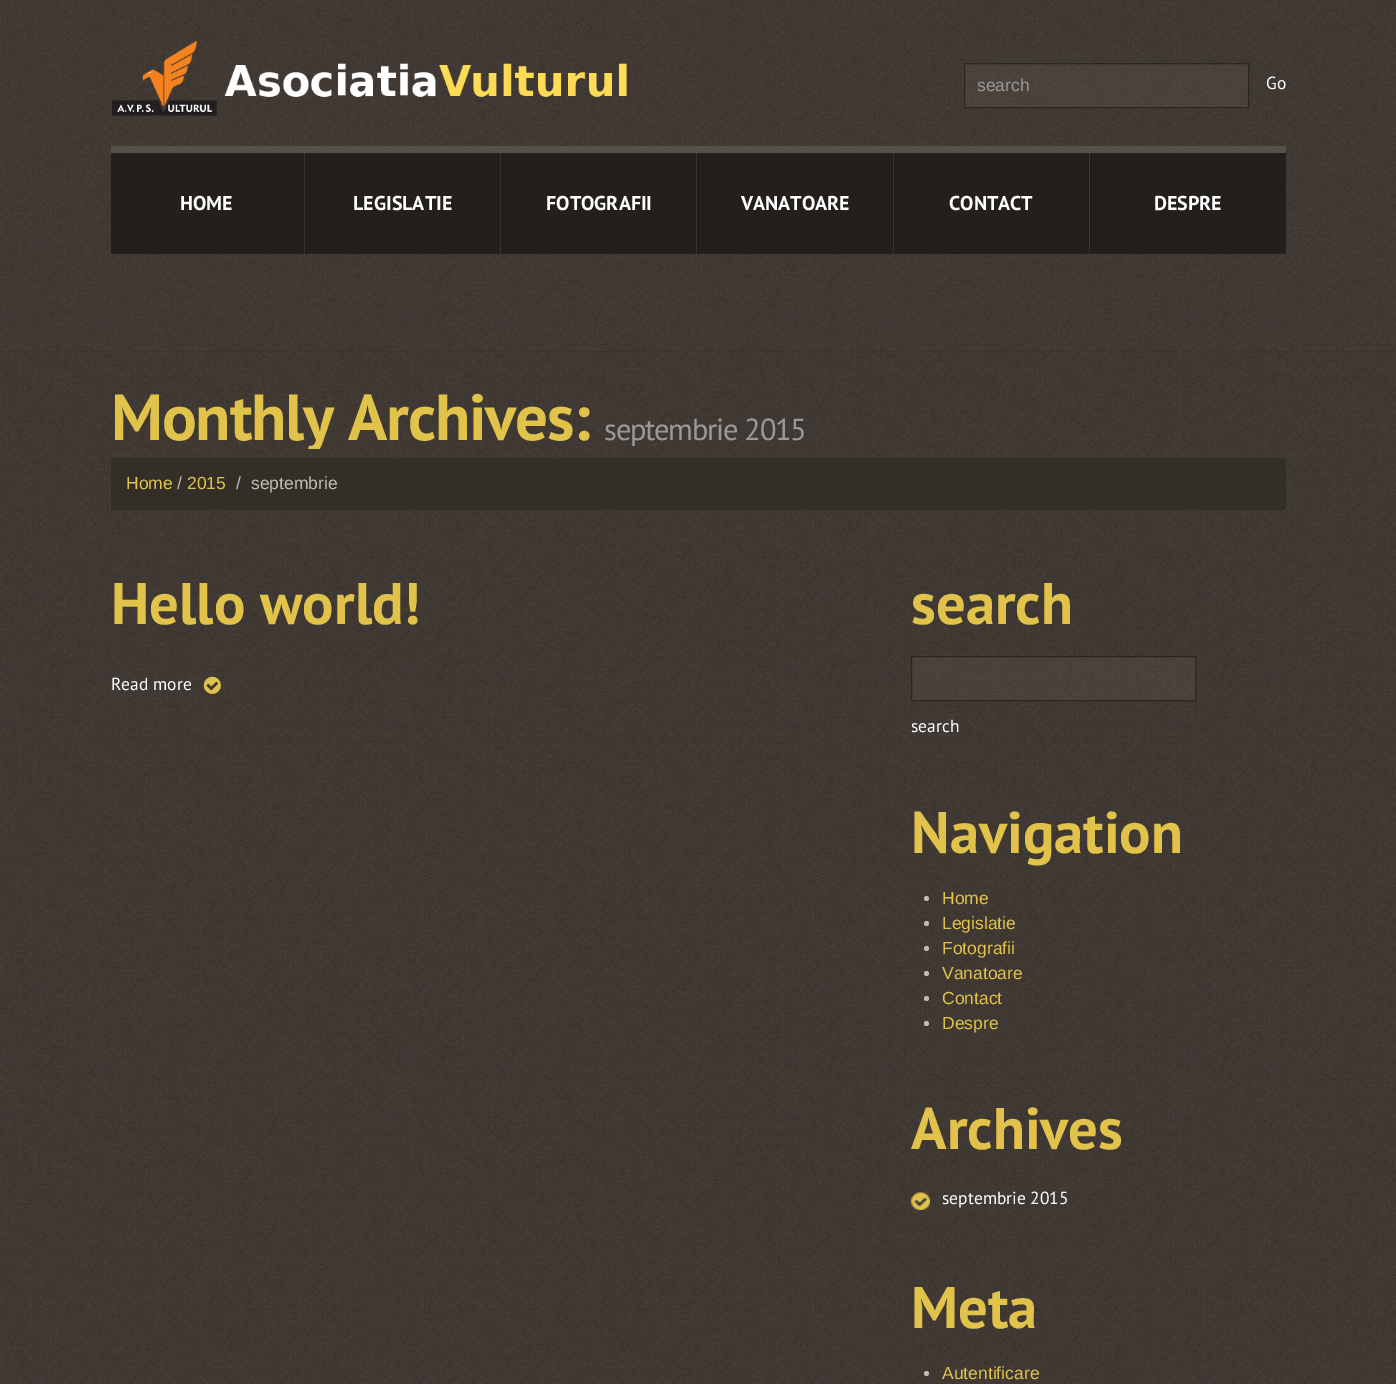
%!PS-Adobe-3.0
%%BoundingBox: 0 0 1396 1384
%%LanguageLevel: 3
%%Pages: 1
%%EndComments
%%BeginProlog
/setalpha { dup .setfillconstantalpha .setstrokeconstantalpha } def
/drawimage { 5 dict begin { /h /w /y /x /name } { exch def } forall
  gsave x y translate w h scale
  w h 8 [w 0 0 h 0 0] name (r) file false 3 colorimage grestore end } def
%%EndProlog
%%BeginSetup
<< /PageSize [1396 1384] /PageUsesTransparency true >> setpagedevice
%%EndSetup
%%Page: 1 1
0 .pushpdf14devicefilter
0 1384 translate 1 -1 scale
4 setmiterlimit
1 setgray
0 0 1396 1384 rectfill
(images/1.raw) 0 0 1396 351 drawimage
(images/2.raw) 112 41 529 75 drawimage
0.1 setalpha
0.616 0.545 0.486 setrgbcolor
newpath 964.5 63.5 moveto 1248.5 63.5 lineto 1248.5 107.5 lineto 964.5 107.5 lineto closepath fill
1 setalpha
0.165 0.149 0.129 setrgbcolor
newpath 964.5 63.5 moveto 1248.5 63.5 lineto 1248.5 107.5 lineto 964.5 107.5 lineto closepath stroke
0.137 0.125 0.11 setrgbcolor
111 153 1175 101 rectfill
0.333 0.318 0.286 setrgbcolor
111 146 1175 7 rectfill
0.227 0.208 0.165 setrgbcolor
304 153 1 101 rectfill
500 153 1 101 rectfill
0.125 0.114 0.09 setrgbcolor
305 153 1 101 rectfill
0.227 0.208 0.165 setrgbcolor
696 153 1 101 rectfill
0.125 0.114 0.09 setrgbcolor
501 153 1 101 rectfill
0.227 0.208 0.165 setrgbcolor
893 153 1 101 rectfill
0.125 0.114 0.09 setrgbcolor
698 153 1 101 rectfill
0.227 0.208 0.165 setrgbcolor
1089 153 1 101 rectfill
0.125 0.114 0.09 setrgbcolor
894 153 1 101 rectfill
1090 153 1 101 rectfill
(images/3.raw) 0 351 1396 1033 drawimage
0.2 0.184 0.157 setrgbcolor
111 458 1175 52 rectfill
(images/4.raw) 203 676 18 18 drawimage
0.1 setalpha
0.616 0.545 0.486 setrgbcolor
newpath 911.5 656.5 moveto 1195.5 656.5 lineto 1195.5 700.5 lineto 911.5 700.5 lineto closepath fill
1 setalpha
0.165 0.149 0.129 setrgbcolor
newpath 911.5 656.5 moveto 1195.5 656.5 lineto 1195.5 700.5 lineto 911.5 700.5 lineto closepath stroke
0.765 0.733 0.678 setrgbcolor
newpath 926.5 898.5 2.5 0 360 arc closepath fill
newpath 926.5 923.5 2.5 0 360 arc closepath fill
newpath 926.5 948.5 2.5 0 360 arc closepath fill
newpath 926.5 973.5 2.5 0 360 arc closepath fill
newpath 926.5 998.5 2.5 0 360 arc closepath fill
newpath 926.5 1023.5 2.5 0 360 arc closepath fill
(images/5.raw) 911 1192 19 18 drawimage
newpath 926.5 1373.5 2.5 0 360 arc closepath fill
gsave
978 75 257 20 rectclip
/LiberationSans-Regular [17.5 0 0 -17.5 0 0] selectfont
0.6 setgray
977 91 moveto (search) show
grestore
/PTSans-Regular [17.5 0 0 -17.5 0 0] selectfont
1 setgray
1266 89 moveto (Go) show
/PTSans-Bold [20 0 0 -20 0 0] selectfont
180 210 moveto (HOME) show
353 210 moveto (LEGISLATIE) show
546 210 moveto (FOTOGRAFII) show
741 210 moveto (VANATOARE) show
949 210 moveto (CONTACT) show
1154 210 moveto (DESPRE) show
gsave
111 384 1175 65 rectclip
/PTSans-Bold [65 0 0 -65 0 0] selectfont
0.882 0.765 0.298 setrgbcolor
111 440 moveto -1.25 0 (Monthly Archives:) ashow
grestore
/PTSans-Regular [30.5 0 0 -30.5 0 0] selectfont
0.6 setgray
604 440 moveto -1.25 0 (septembrie 2015) ashow
/LiberationSans-Regular [17.5 0 0 -17.5 0 0] selectfont
0.882 0.765 0.298 setrgbcolor
126 489 moveto (Home) show
0.765 0.733 0.678 setrgbcolor
177 489 moveto (/) show
0.882 0.765 0.298 setrgbcolor
187 489 moveto (2015) show
0.765 0.733 0.678 setrgbcolor
236 489 moveto (/) show
251 489 moveto (septembrie) show
/PTSans-Bold [58.75 0 0 -58.75 0 0] selectfont
0.882 0.765 0.298 setrgbcolor
111 624 moveto (Hello world!) show
/PTSans-Regular [17.5 0 0 -17.5 0 0] selectfont
1 setgray
111 690 moveto (Read more) show
/PTSans-Bold [58.75 0 0 -58.75 0 0] selectfont
0.882 0.765 0.298 setrgbcolor
911 624 moveto (search) show
/PTSans-Regular [17.5 0 0 -17.5 0 0] selectfont
1 setgray
911 732 moveto (search) show
/PTSans-Bold [58.75 0 0 -58.75 0 0] selectfont
0.882 0.765 0.298 setrgbcolor
911 853 moveto (Navigation) show
/LiberationSans-Regular [17.5 0 0 -17.5 0 0] selectfont
942 904 moveto (Home) show
942 929 moveto (Legislatie) show
942 954 moveto (Fotografii) show
942 979 moveto (Vanatoare) show
942 1004 moveto (Contact) show
942 1029 moveto (Despre) show
/PTSans-Bold [58.75 0 0 -58.75 0 0] selectfont
911 1149 moveto (Archives) show
/PTSans-Regular [17.5 0 0 -17.5 0 0] selectfont
1 setgray
942 1204 moveto (septembrie 2015) show
/PTSans-Bold [58.75 0 0 -58.75 0 0] selectfont
0.882 0.765 0.298 setrgbcolor
911 1328 moveto (Meta) show
/LiberationSans-Regular [17.5 0 0 -17.5 0 0] selectfont
942 1379 moveto (Autentificare) show
.poppdf14devicefilter showpage
%%EOF
